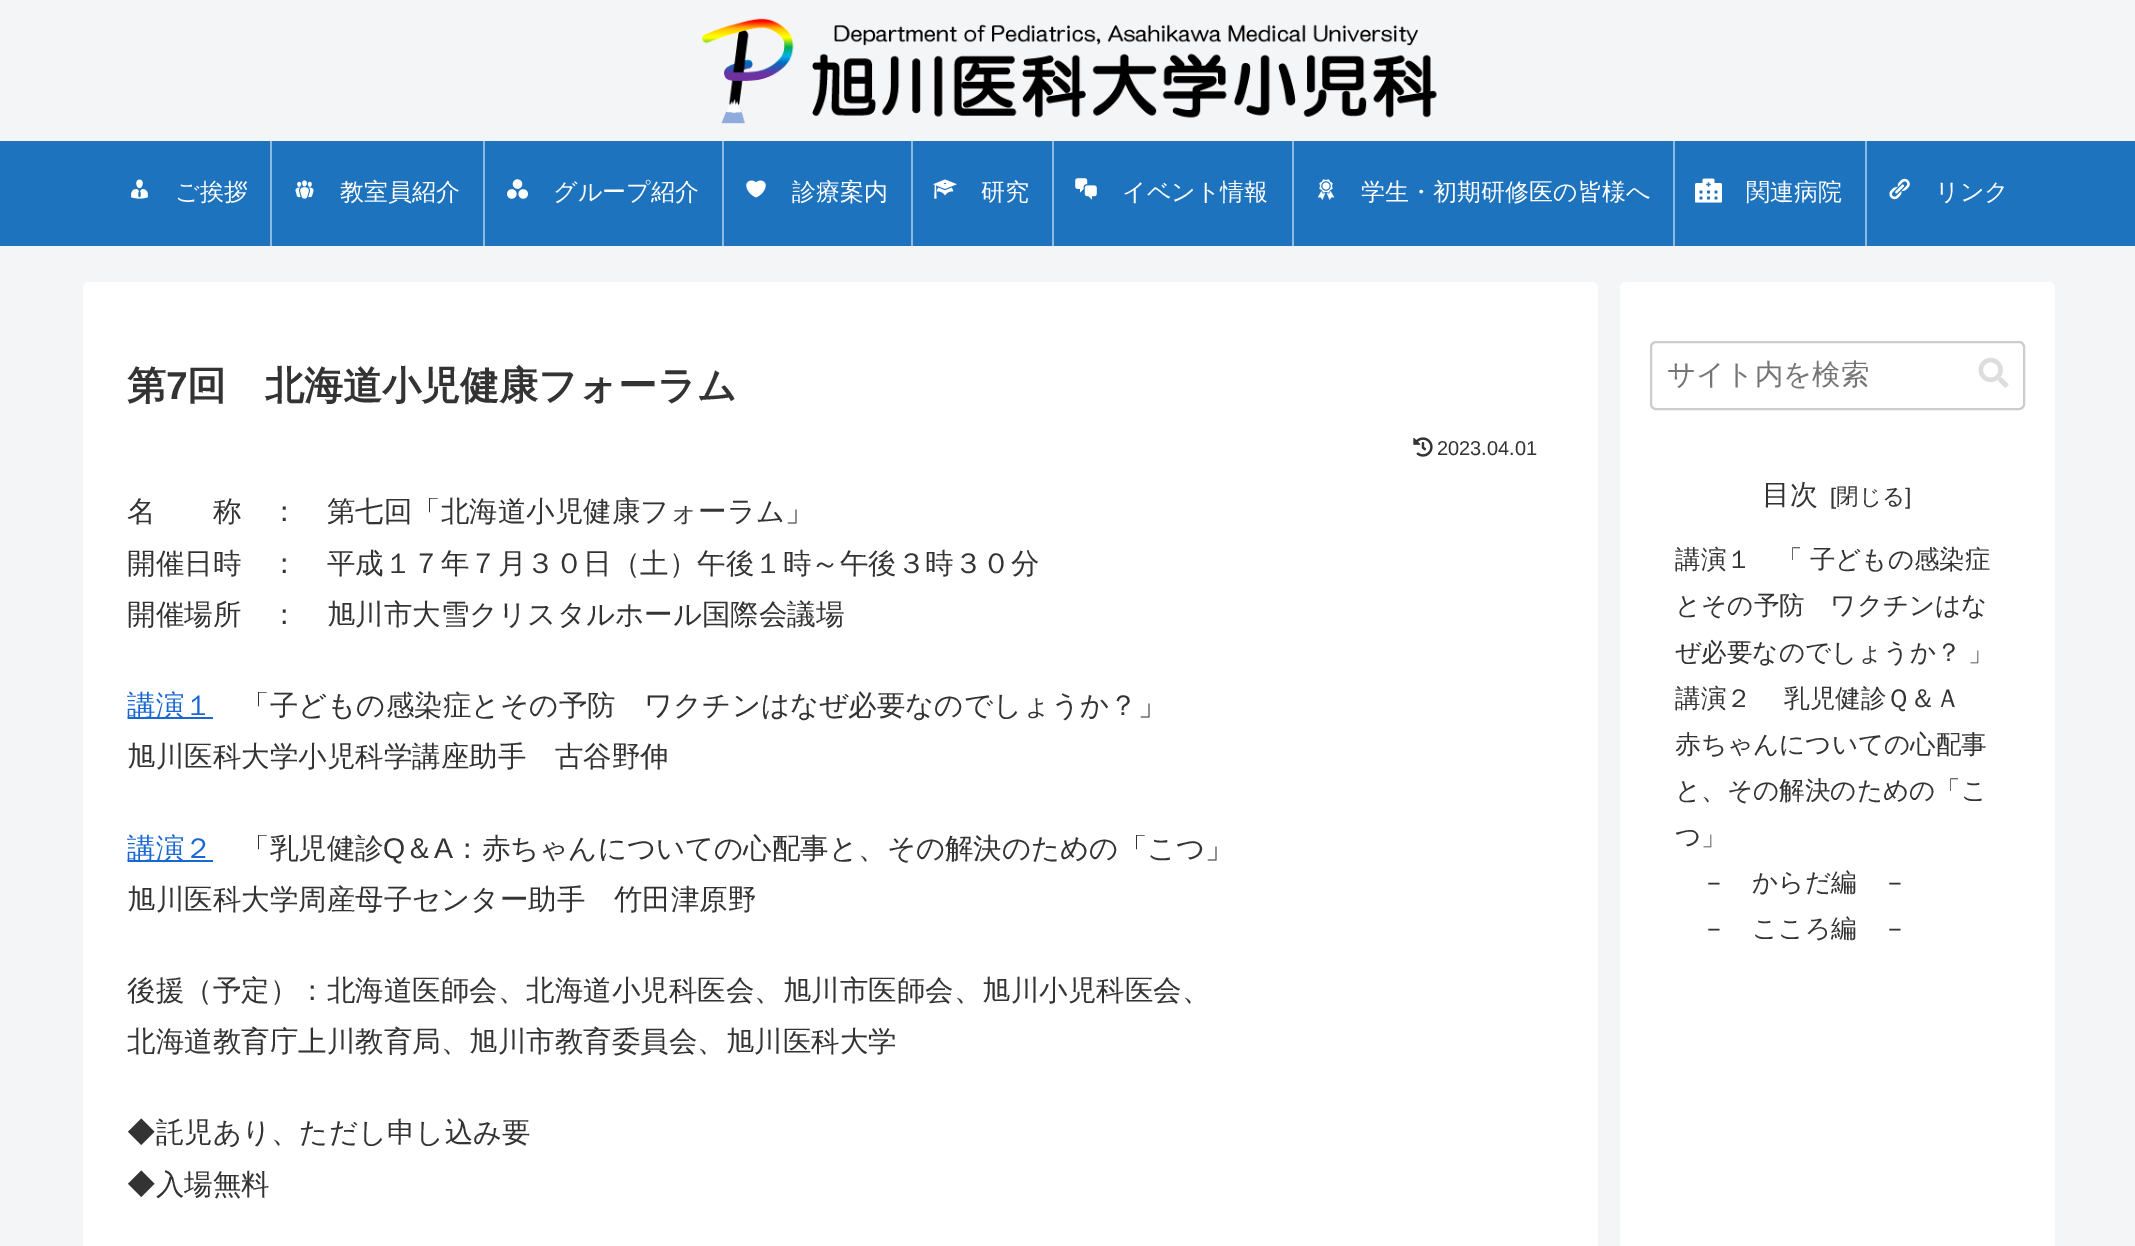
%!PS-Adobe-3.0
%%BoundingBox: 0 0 2135 1246
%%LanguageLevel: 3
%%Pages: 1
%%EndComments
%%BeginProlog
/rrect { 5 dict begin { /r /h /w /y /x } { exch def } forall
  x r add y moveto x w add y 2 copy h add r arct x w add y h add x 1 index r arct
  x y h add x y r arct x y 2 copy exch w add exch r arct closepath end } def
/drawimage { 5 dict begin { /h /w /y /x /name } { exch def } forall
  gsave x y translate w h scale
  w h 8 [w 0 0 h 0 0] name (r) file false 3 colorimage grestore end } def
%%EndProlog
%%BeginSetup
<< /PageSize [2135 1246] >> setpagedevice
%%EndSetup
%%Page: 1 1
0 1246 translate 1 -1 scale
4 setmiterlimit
0.957 0.961 0.969 setrgbcolor
0 0 2135 1246 rectfill
(images/1.raw) 701 18 736 106 drawimage
0.118 0.451 0.745 setrgbcolor
0 141 2135 105 rectfill
(images/2.raw) 131 179 17 20 drawimage
0.561 0.725 0.875 setrgbcolor
270 141 2 105 rectfill
(images/3.raw) 295 180 19 19 drawimage
483 141 2 105 rectfill
(images/4.raw) 507 179 21 20 drawimage
722 141 2 105 rectfill
(images/5.raw) 746 180 20 18 drawimage
911 141 2 105 rectfill
(images/6.raw) 933 179 24 20 drawimage
1052 141 2 105 rectfill
(images/7.raw) 1075 178 22 22 drawimage
1292 141 2 105 rectfill
(images/8.raw) 1317 179 18 21 drawimage
1673 141 2 105 rectfill
(images/9.raw) 1695 178 27 25 drawimage
1865 141 2 105 rectfill
(images/10.raw) 1889 178 21 22 drawimage
1 setgray
83 282 1515 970 6 rrect fill
(images/11.raw) 1413 437 20 20 drawimage
0.098 0.404 0.824 setrgbcolor
128 717 85 2 rectfill
128 860 85 2 rectfill
1 setgray
1620 282 435 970 6 rrect fill
0.8 setgray
2 setlinewidth
1651 342 373 67 5 rrect stroke
(images/12.raw) 1978 357 31 31 drawimage
/WenQuanYiZenHei-Medium [24 0 0 -24 0 0] selectfont
1 setgray
175 200 moveto (ご挨拶) show
340 200 moveto (教室員紹介) show
553 200 moveto (グループ紹介) show
792 200 moveto (診療案内) show
981 200 moveto (研究) show
1122 200 moveto (イベント情報) show
1361 200 moveto (学生・初期研修医の皆様へ) show
1746 200 moveto (関連病院) show
1935 200 moveto (リンク) show
/WenQuanYiZenHei-Bold [39 0 0 -39 0 0] selectfont
0.2 setgray
127 399 moveto (第) show
/LiberationSans-Bold [39 0 0 -39 0 0] selectfont
166 399 moveto (7) show
/WenQuanYiZenHei-Bold [39 0 0 -39 0 0] selectfont
187 399 moveto (回　北海道小児健康フォーラム) show
/LiberationSans-Regular [20 0 0 -20 0 0] selectfont
1437 455 moveto (2023.04.01) show
/WenQuanYiZenHei-Medium [28.5 0 0 -28.5 0 0] selectfont
127 521 moveto (名　　称　：　第七回「北海道小児健康フォーラム」) show
127 573 moveto (開催日時　：　平成１７年７月３０日（土）午後１時～午後３時３０分) show
127 624 moveto (開催場所　：　旭川市大雪クリスタルホール国際会議場) show
0.098 0.404 0.824 setrgbcolor
127 715 moveto (講演１) show
0.2 setgray
241 715 moveto (「子どもの感染症とその予防　ワクチンはなぜ必要なのでしょうか？」) show
127 766 moveto (旭川医科大学小児科学講座助手　古谷野伸) show
0.098 0.404 0.824 setrgbcolor
127 858 moveto (講演２) show
0.2 setgray
241 858 moveto (「乳児健診) show
/LiberationSans-Regular [28.5 0 0 -28.5 0 0] selectfont
383 858 moveto (Q) show
/WenQuanYiZenHei-Medium [28.5 0 0 -28.5 0 0] selectfont
405 858 moveto (＆) show
/LiberationSans-Regular [28.5 0 0 -28.5 0 0] selectfont
434 858 moveto (A) show
/WenQuanYiZenHei-Medium [28.5 0 0 -28.5 0 0] selectfont
453 858 moveto (：赤ちゃんについての心配事と、その解決のための「こつ」) show
127 909 moveto (旭川医科大学周産母子センター助手　竹田津原野) show
127 1000 moveto (後援（予定）：北海道医師会、北海道小児科医会、旭川市医師会、旭川小児科医会、) show
127 1051 moveto (北海道教育庁上川教育局、旭川市教育委員会、旭川医科大学) show
127 1142 moveto (◆託児あり、ただし申し込み要) show
127 1194 moveto (◆入場無料) show
0.459 setgray
1667 384 moveto (サイト内を検索) show
/WenQuanYiZenHei-Medium [28 0 0 -28 0 0] selectfont
0.2 setgray
1762 504 moveto (目次) show
/LiberationSans-Regular [22.5 0 0 -22.5 0 0] selectfont
1830 504 moveto ([) show
/WenQuanYiZenHei-Medium [22.5 0 0 -22.5 0 0] selectfont
1836 504 moveto (閉じる) show
/LiberationSans-Regular [22.5 0 0 -22.5 0 0] selectfont
1905 504 moveto (]) show
/WenQuanYiZenHei-Medium [25.6 0 0 -25.6 0 0] selectfont
1675 568 moveto -1 0 32 (講演１　「 子どもの感染症) widthshow
1675 614 moveto (とその予防　ワクチンはな) show
1675 661 moveto -1 0 32 (ぜ必要なのでしょうか？ 」) widthshow
1675 707 moveto -1 0 32 (講演２　 乳児健診Ｑ＆Ａ) widthshow
1675 753 moveto (赤ちゃんについての心配事) show
1675 799 moveto (と、その解決のための「こ) show
1675 845 moveto (つ」) show
1701 891 moveto (－　からだ編　－) show
1701 937 moveto (－　こころ編　－) show
showpage
%%EOF
